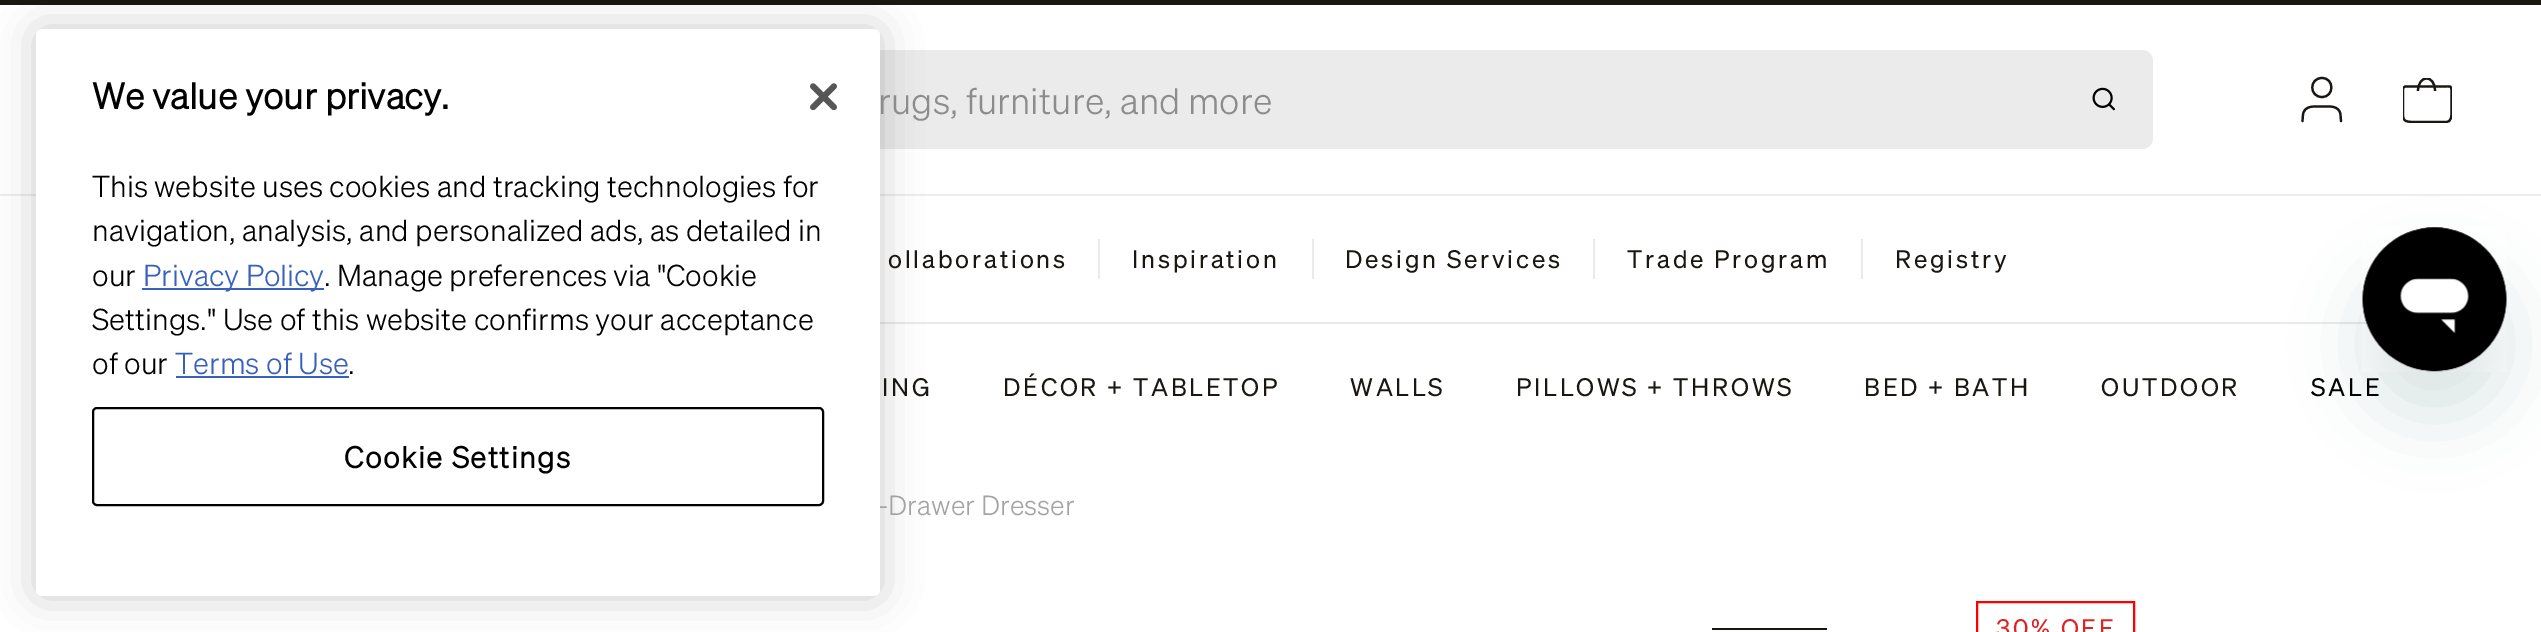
%!PS-Adobe-3.0
%%BoundingBox: 0 0 2541 632
%%LanguageLevel: 3
%%Pages: 1
%%EndComments
%%BeginProlog
/setalpha { dup .setfillconstantalpha .setstrokeconstantalpha } def
/rrect { 5 dict begin { /r /h /w /y /x } { exch def } forall
  x r add y moveto x w add y 2 copy h add r arct x w add y h add x 1 index r arct
  x y h add x y r arct x y 2 copy exch w add exch r arct closepath end } def
/softshadow { 12 dict begin { /a /b /q /h /w /y /x } { exch def } forall gsave /was 0 def
  9 -2 -9 { dup b mul 4 div /e exch def 1 sub .425 mul 2.718 exch exp 1 add a .99 .min exch div /now exch def
    1 1 now sub 1 was sub div sub setalpha /was now def
    w h .min e 2 mul add 0 gt { x e sub y e sub w e 2 mul add h e 2 mul add
      q e add b .6 mul add w h .min 2 div e add .min 0 .max rrect fill } if } for grestore end } def
/drawimage { 5 dict begin { /h /w /y /x /name } { exch def } forall
  gsave x y translate w h scale
  w h 8 [w 0 0 h 0 0] name (r) file false 3 colorimage grestore end } def
%%EndProlog
%%BeginSetup
<< /PageSize [2541 632] /PageUsesTransparency true >> setpagedevice
%%EndSetup
%%Page: 1 1
0 .pushpdf14devicefilter
0 632 translate 1 -1 scale
4 setmiterlimit
1 setgray
0 0 2541 632 rectfill
0.102 0.09 0.075 setrgbcolor
0 0 2541 5 rectfill
0.922 setgray
657 50 1496 99 11 rrect fill
0.929 setgray
0 194 2541 2 rectfill
0.918 setgray
880 322 1488 2 rectfill
0 setgray
36 29 844 567 6 20 0.2 softshadow
(images/2.raw) 2092 87 23 24 drawimage
0.102 0.09 0.075 setrgbcolor
2.2 setlinewidth
1 setlinecap
1 setlinejoin
newpath 2341 121 moveto 2340.5 114.5 lineto 2339 105 2329 106.5 2322 106.5 curveto 2314.5 106.5 2304.5 105 2303 114.5 curveto 2302.5 121 lineto 2322 97 moveto 2334.5 97 2334.5 78 2322 78 curveto 2309 78 2309 97 2322 97 curveto closepath stroke
gsave
2403 78 49 45 rectclip
0 setlinecap
0 setlinejoin
newpath 2405 86.5 moveto 2442 86.5 lineto 2451.5 86.5 2451.5 85 2451.5 93 curveto 2451.5 112 lineto 2451.5 116 2451.5 122 2446 122 curveto 2415 122 lineto 2401.5 122 2403 120 2403 107 curveto 2403 88 lineto closepath 2418 91 moveto 2418 74.5 2435 74 2435 91 curveto stroke
grestore
0.918 setgray
1098 239 2 40 rectfill
1312 239 2 40 rectfill
1593 239 2 40 rectfill
1861 239 2 40 rectfill
0.09 0.286 0.302 setrgbcolor
2363 272 144 144 72 34 0.15 softshadow
(images/3.raw) 2362 227 145 145 drawimage
0.102 0.09 0.075 setrgbcolor
1712 628 115 2 rectfill
1 0 0 setrgbcolor
2 setlinewidth
0 setlinecap
0 setlinejoin
1977 602 157 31 rectstroke
/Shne-Light [36 0 0 -36 0 0] selectfont
0.549 setgray
878 114 moveto (rugs, furniture, and more) show
/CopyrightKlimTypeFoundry-Regular [24.75 0 0 -24.75 0 0] selectfont
0.102 0.09 0.075 setrgbcolor
888 268 moveto 2.75 0 (ollaborations) ashow
1132 268 moveto 2.75 0 (Inspiration) ashow
1345 268 moveto 2.75 0 (Design Services) ashow
1627 268 moveto 2.75 0 (Trade Program) ashow
1895 268 moveto 2.75 0 (Registry) ashow
882 396 moveto 2.75 0 (ING) ashow
1003 396 moveto 2.75 0 (DÉCOR + TABLETOP) ashow
1350 396 moveto 2.75 0 (WALLS) ashow
1516 396 moveto 2.75 0 (PILLOWS + THROWS) ashow
1864 396 moveto 2.75 0 (BED + BATH) ashow
2101 396 moveto 2.75 0 (OUTDOOR) ashow
0 setgray
2311 396 moveto 2.75 0 (SALE) ashow
/Shne-Light [27 0 0 -27 0 0] selectfont
0.639 setgray
878 515 moveto (-Drawer Dresser) show
1 setgray
36 29 844 567 6 rrect fill
(images/1.raw) 810 83 27 27 drawimage
0 setgray
93 408 730 97 4 rrect stroke
/Shne-Bold [29.5 0 0 -29.5 0 0] selectfont
344 468 moveto 1.5 0 (Cookie Settings) ashow
/Shne-Light [29.5 0 0 -29.5 0 0] selectfont
348 374 moveto (.) show
0.22 0.376 0.745 setrgbcolor
175 374 moveto (Terms of Use) show
176 376 173 2 rectfill
0 setgray
92 374 moveto (of our) show
92 330 moveto (Settings." Use of this website confirms your acceptance) show
324 286 moveto (. Manage preferences via "Cookie) show
0.22 0.376 0.745 setrgbcolor
142 288 182 2 rectfill
143 286 moveto (Privacy Policy) show
0 setgray
92 286 moveto (our) show
92 241 moveto (navigation, analysis, and personalized ads, as detailed in) show
92 197 moveto (This website uses cookies and tracking technologies for) show
/Shne-Bold [36 0 0 -36 0 0] selectfont
92 109 moveto (We value your privacy.) show
/CopyrightKlimTypeFoundry-Regular [24.75 0 0 -24.75 0 0] selectfont
0.863 0.149 0.149 setrgbcolor
1996 637 moveto 2.75 0 (30% OFF) ashow
.poppdf14devicefilter showpage
%%EOF
